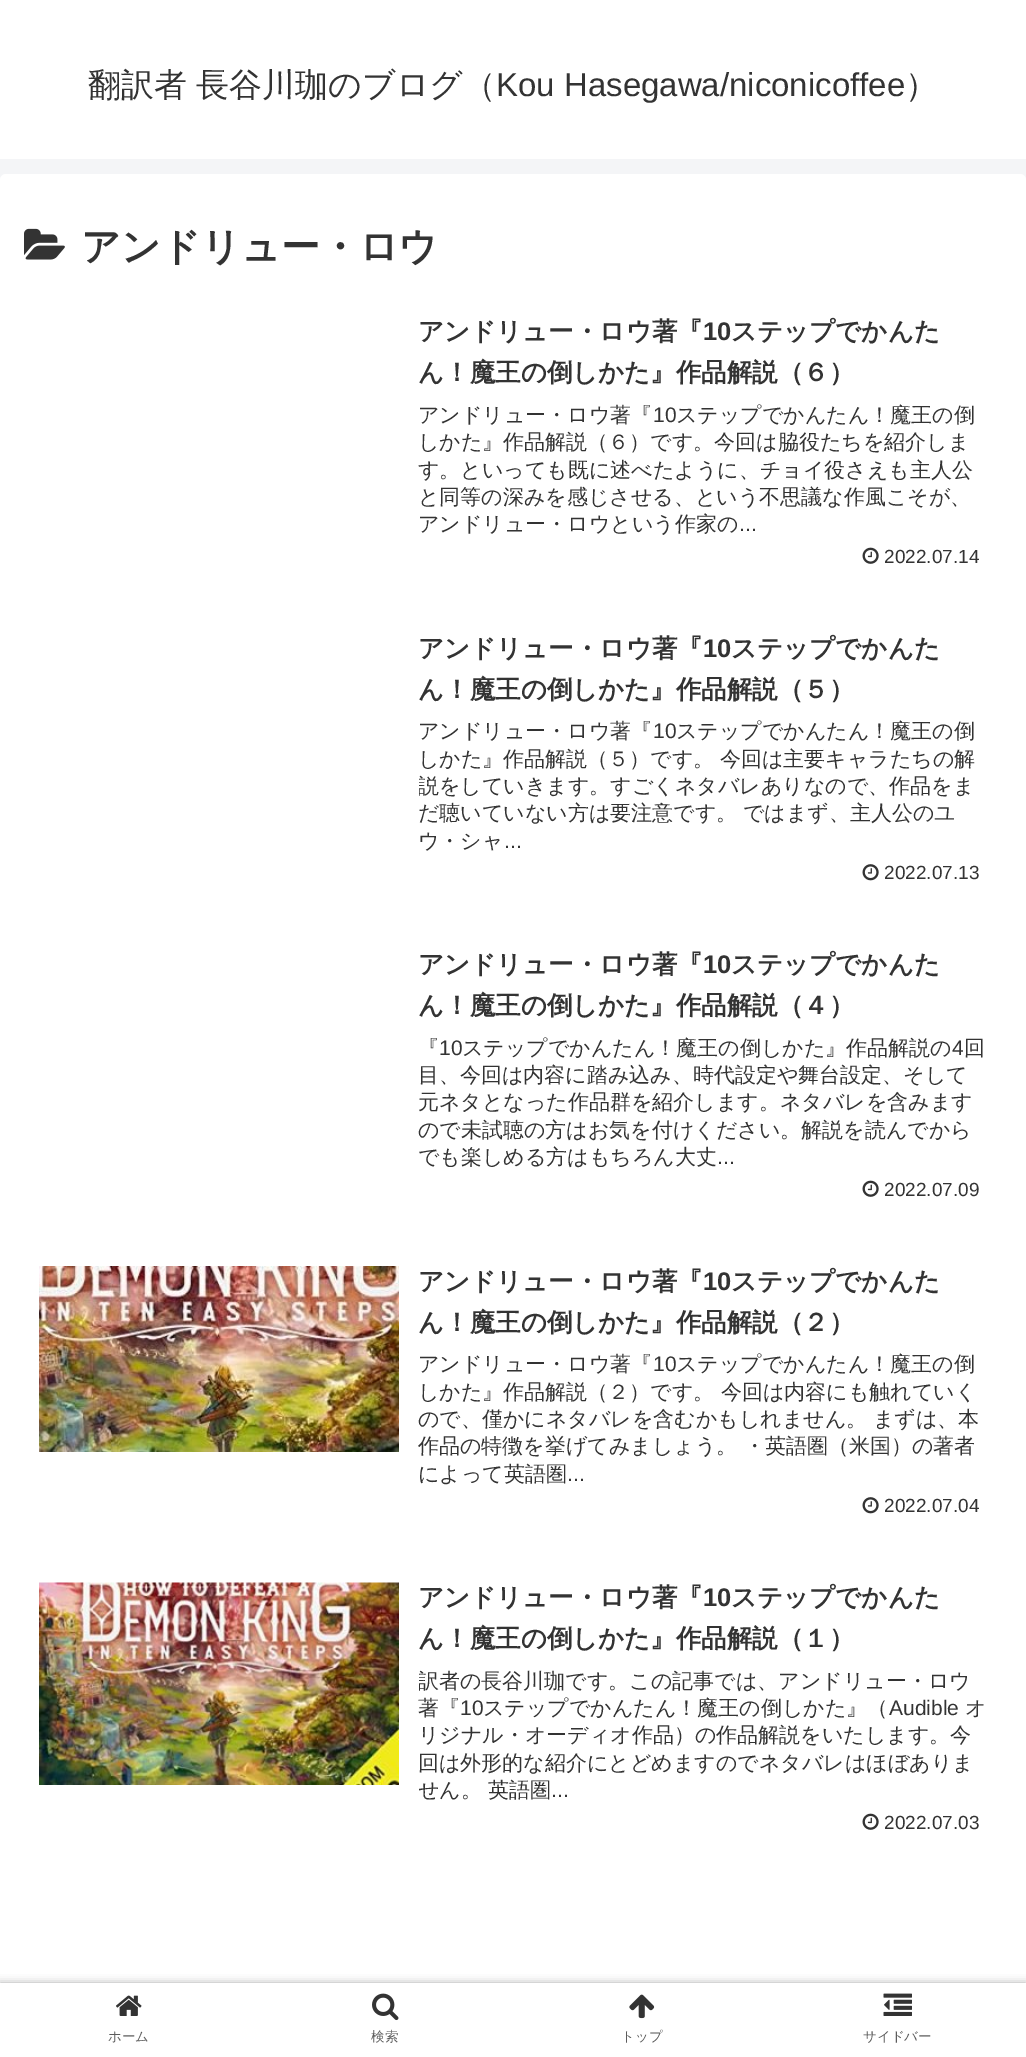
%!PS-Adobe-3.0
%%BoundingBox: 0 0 1026 2057
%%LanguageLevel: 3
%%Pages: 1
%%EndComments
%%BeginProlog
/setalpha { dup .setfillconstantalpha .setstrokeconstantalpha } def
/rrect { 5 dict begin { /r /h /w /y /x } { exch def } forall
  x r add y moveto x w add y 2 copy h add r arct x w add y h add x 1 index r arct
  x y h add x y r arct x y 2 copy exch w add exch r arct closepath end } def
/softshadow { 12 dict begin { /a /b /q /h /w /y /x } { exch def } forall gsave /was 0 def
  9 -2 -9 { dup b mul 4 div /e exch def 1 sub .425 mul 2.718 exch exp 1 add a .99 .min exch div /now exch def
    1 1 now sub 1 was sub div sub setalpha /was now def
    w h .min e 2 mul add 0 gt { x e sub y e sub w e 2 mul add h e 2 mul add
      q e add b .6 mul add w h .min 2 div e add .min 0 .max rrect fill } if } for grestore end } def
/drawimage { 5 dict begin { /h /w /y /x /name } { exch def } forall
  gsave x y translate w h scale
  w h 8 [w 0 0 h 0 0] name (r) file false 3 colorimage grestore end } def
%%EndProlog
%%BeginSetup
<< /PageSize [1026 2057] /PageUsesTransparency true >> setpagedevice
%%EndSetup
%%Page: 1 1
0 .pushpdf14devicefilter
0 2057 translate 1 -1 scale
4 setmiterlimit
0.957 0.961 0.969 setrgbcolor
0 0 1026 2057 rectfill
1 setgray
0 0 1026 159 rectfill
0 174 1026 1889 6 rrect fill
(images/1.raw) 24 228 41 32 drawimage
(images/2.raw) 862 547 17 17 drawimage
(images/3.raw) 862 864 17 17 drawimage
(images/2.raw) 862 1180 17 17 drawimage
(images/4.raw) 39 1266 360 186 drawimage
(images/3.raw) 862 1497 17 17 drawimage
(images/5.raw) 39 1582 360 203 drawimage
(images/2.raw) 862 1813 17 17 drawimage
0.663 setgray
0 1983 1026 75 0 4 1 softshadow
1 setgray
0 1983 1026 74 rectfill
(images/6.raw) 116 1995 26 21 drawimage
(images/7.raw) 372 1993 27 28 drawimage
(images/8.raw) 629 1994 26 25 drawimage
(images/9.raw) 883 1993 29 23 drawimage
/WenQuanYiZenHei-Medium [33 0 0 -33 0 0] selectfont
0.2 setgray
88 96 moveto (翻訳者) show
196 96 moveto (長谷川珈のブログ（) show
/LiberationSans-Regular [33 0 0 -33 0 0] selectfont
496 96 moveto (Kou Hasegawa/niconicoffee) show
/WenQuanYiZenHei-Medium [33 0 0 -33 0 0] selectfont
905 96 moveto (）) show
/WenQuanYiZenHei-Bold [39 0 0 -39 0 0] selectfont
81 260 moveto (アンドリュー・ロウ) show
/WenQuanYiZenHei-Bold [25.5 0 0 -25.5 0 0] selectfont
418 340 moveto (アンドリュー・ロウ著『) show
/LiberationSans-Bold [25.5 0 0 -25.5 0 0] selectfont
703 340 moveto (10) show
/WenQuanYiZenHei-Bold [25.5 0 0 -25.5 0 0] selectfont
731 340 moveto (ステップでかんた) show
418 381 moveto (ん！魔王の倒しかた』作品解説（６）) show
/WenQuanYiZenHei-Medium [21 0 0 -21 0 0] selectfont
418 422 moveto (アンドリュー・ロウ著『) show
/LiberationSans-Regular [21 0 0 -21 0 0] selectfont
653 422 moveto (10) show
/WenQuanYiZenHei-Medium [21 0 0 -21 0 0] selectfont
676 422 moveto (ステップでかんたん！魔王の倒) show
418 449 moveto (しかた』作品解説（６）です。今回は脇役たちを紹介しま) show
418 477 moveto (す。といっても既に述べたように、チョイ役さえも主人公) show
418 504 moveto (と同等の深みを感じさせる、という不思議な作風こそが、) show
418 531 moveto (アンドリュー・ロウという作家の) show
/LiberationSans-Regular [21 0 0 -21 0 0] selectfont
739 531 moveto (...) show
/LiberationSans-Regular [19 0 0 -19 0 0] selectfont
884 563 moveto (2022.07.14) show
/WenQuanYiZenHei-Bold [25.5 0 0 -25.5 0 0] selectfont
418 657 moveto (アンドリュー・ロウ著『) show
/LiberationSans-Bold [25.5 0 0 -25.5 0 0] selectfont
703 657 moveto (10) show
/WenQuanYiZenHei-Bold [25.5 0 0 -25.5 0 0] selectfont
731 657 moveto (ステップでかんた) show
418 698 moveto (ん！魔王の倒しかた』作品解説（５）) show
/WenQuanYiZenHei-Medium [21 0 0 -21 0 0] selectfont
418 738 moveto (アンドリュー・ロウ著『) show
/LiberationSans-Regular [21 0 0 -21 0 0] selectfont
653 738 moveto (10) show
/WenQuanYiZenHei-Medium [21 0 0 -21 0 0] selectfont
676 738 moveto (ステップでかんたん！魔王の倒) show
418 766 moveto (しかた』作品解説（５）です。) show
720 766 moveto (今回は主要キャラたちの解) show
gsave
419 717 568 137 rectclip
418 793 moveto (説をしていきます。すごくネタバレありなので、作品をま) show
grestore
418 820 moveto (だ聴いていない方は要注意です。) show
743 820 moveto (ではまず、主人公のユ) show
418 848 moveto (ウ・シャ) show
/LiberationSans-Regular [21 0 0 -21 0 0] selectfont
504 848 moveto (...) show
/LiberationSans-Regular [19 0 0 -19 0 0] selectfont
884 879 moveto (2022.07.13) show
/WenQuanYiZenHei-Bold [25.5 0 0 -25.5 0 0] selectfont
418 973 moveto (アンドリュー・ロウ著『) show
/LiberationSans-Bold [25.5 0 0 -25.5 0 0] selectfont
703 973 moveto (10) show
/WenQuanYiZenHei-Bold [25.5 0 0 -25.5 0 0] selectfont
731 973 moveto (ステップでかんた) show
418 1014 moveto (ん！魔王の倒しかた』作品解説（４）) show
/WenQuanYiZenHei-Medium [21 0 0 -21 0 0] selectfont
418 1055 moveto (『) show
/LiberationSans-Regular [21 0 0 -21 0 0] selectfont
439 1055 moveto (10) show
/WenQuanYiZenHei-Medium [21 0 0 -21 0 0] selectfont
462 1055 moveto (ステップでかんたん！魔王の倒しかた』作品解説の) show
/LiberationSans-Regular [21 0 0 -21 0 0] selectfont
952 1055 moveto (4) show
/WenQuanYiZenHei-Medium [21 0 0 -21 0 0] selectfont
964 1055 moveto (回) show
418 1082 moveto (目、今回は内容に踏み込み、時代設定や舞台設定、そして) show
418 1109 moveto (元ネタとなった作品群を紹介します。ネタバレを含みます) show
418 1137 moveto (ので未試聴の方はお気を付けください。解説を読んでから) show
418 1164 moveto (でも楽しめる方はもちろん大丈) show
/LiberationSans-Regular [21 0 0 -21 0 0] selectfont
717 1164 moveto (...) show
/LiberationSans-Regular [19 0 0 -19 0 0] selectfont
884 1196 moveto (2022.07.09) show
/WenQuanYiZenHei-Bold [25.5 0 0 -25.5 0 0] selectfont
418 1290 moveto (アンドリュー・ロウ著『) show
/LiberationSans-Bold [25.5 0 0 -25.5 0 0] selectfont
703 1290 moveto (10) show
/WenQuanYiZenHei-Bold [25.5 0 0 -25.5 0 0] selectfont
731 1290 moveto (ステップでかんた) show
418 1331 moveto (ん！魔王の倒しかた』作品解説（２）) show
/WenQuanYiZenHei-Medium [21 0 0 -21 0 0] selectfont
418 1371 moveto (アンドリュー・ロウ著『) show
/LiberationSans-Regular [21 0 0 -21 0 0] selectfont
653 1371 moveto (10) show
/WenQuanYiZenHei-Medium [21 0 0 -21 0 0] selectfont
676 1371 moveto (ステップでかんたん！魔王の倒) show
418 1399 moveto (しかた』作品解説（２）です。 今回は内容にも触れていく) show
418 1426 moveto (ので、僅かにネタバレを含むかもしれません。) show
873 1426 moveto (まずは、本) show
418 1453 moveto (作品の特徴を挙げてみましょう。 ・英語圏（米国）の著者) show
418 1481 moveto (によって英語圏) show
/LiberationSans-Regular [21 0 0 -21 0 0] selectfont
567 1481 moveto (...) show
/LiberationSans-Regular [19 0 0 -19 0 0] selectfont
884 1512 moveto (2022.07.04) show
/WenQuanYiZenHei-Bold [25.5 0 0 -25.5 0 0] selectfont
418 1606 moveto (アンドリュー・ロウ著『) show
/LiberationSans-Bold [25.5 0 0 -25.5 0 0] selectfont
703 1606 moveto (10) show
/WenQuanYiZenHei-Bold [25.5 0 0 -25.5 0 0] selectfont
731 1606 moveto (ステップでかんた) show
418 1647 moveto (ん！魔王の倒しかた』作品解説（１）) show
gsave
419 1667 568 136 rectclip
/WenQuanYiZenHei-Medium [21 0 0 -21 0 0] selectfont
418 1688 moveto (訳者の長谷川珈です。この記事では、アンドリュー・ロウ) show
grestore
/WenQuanYiZenHei-Medium [21 0 0 -21 0 0] selectfont
418 1715 moveto (著『) show
/LiberationSans-Regular [21 0 0 -21 0 0] selectfont
460 1715 moveto (10) show
/WenQuanYiZenHei-Medium [21 0 0 -21 0 0] selectfont
483 1715 moveto (ステップでかんたん！魔王の倒しかた』（) show
/LiberationSans-Regular [21 0 0 -21 0 0] selectfont
889 1715 moveto (Audible) show
/WenQuanYiZenHei-Medium [21 0 0 -21 0 0] selectfont
965 1715 moveto (オ) show
418 1742 moveto (リジナル・オーディオ作品）の作品解説をいたします。今) show
418 1770 moveto (回は外形的な紹介にとどめますのでネタバレはほぼありま) show
gsave
419 1667 568 136 rectclip
418 1797 moveto (せん。) show
grestore
488 1797 moveto (英語圏) show
/LiberationSans-Regular [21 0 0 -21 0 0] selectfont
551 1797 moveto (...) show
/LiberationSans-Regular [19 0 0 -19 0 0] selectfont
884 1829 moveto (2022.07.03) show
/WenQuanYiZenHei-Medium [13.5 0 0 -13.5 0 0] selectfont
0.361 setgray
108 2041 moveto (ホーム) show
371 2041 moveto (検索) show
621 2041 moveto (トップ) show
863 2041 moveto (サイドバー) show
.poppdf14devicefilter showpage
%%EOF
